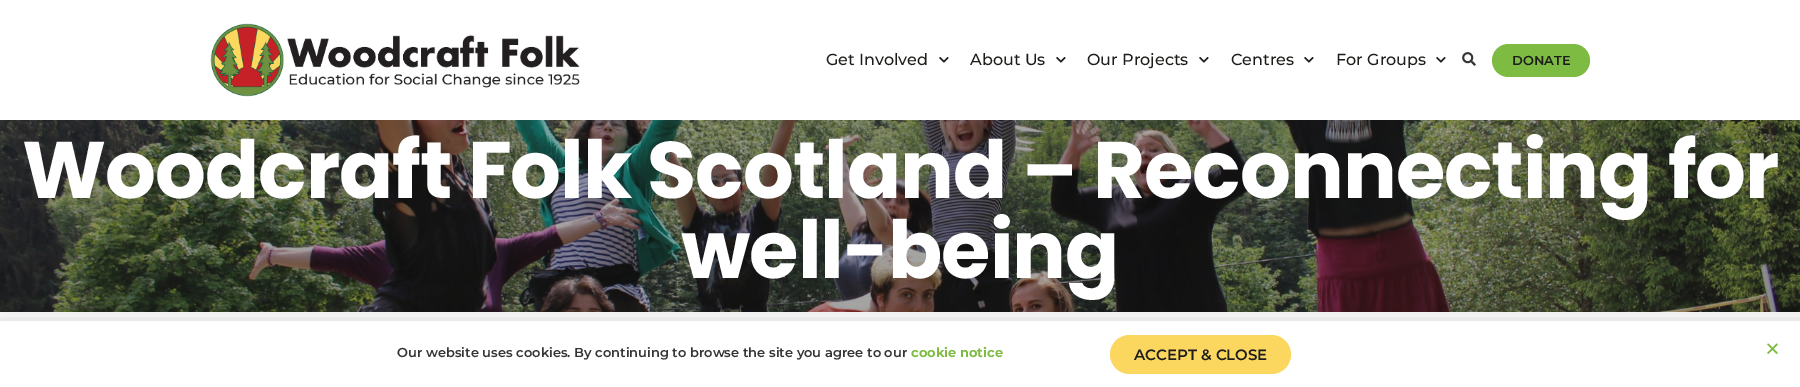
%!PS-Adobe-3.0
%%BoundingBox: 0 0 1800 387
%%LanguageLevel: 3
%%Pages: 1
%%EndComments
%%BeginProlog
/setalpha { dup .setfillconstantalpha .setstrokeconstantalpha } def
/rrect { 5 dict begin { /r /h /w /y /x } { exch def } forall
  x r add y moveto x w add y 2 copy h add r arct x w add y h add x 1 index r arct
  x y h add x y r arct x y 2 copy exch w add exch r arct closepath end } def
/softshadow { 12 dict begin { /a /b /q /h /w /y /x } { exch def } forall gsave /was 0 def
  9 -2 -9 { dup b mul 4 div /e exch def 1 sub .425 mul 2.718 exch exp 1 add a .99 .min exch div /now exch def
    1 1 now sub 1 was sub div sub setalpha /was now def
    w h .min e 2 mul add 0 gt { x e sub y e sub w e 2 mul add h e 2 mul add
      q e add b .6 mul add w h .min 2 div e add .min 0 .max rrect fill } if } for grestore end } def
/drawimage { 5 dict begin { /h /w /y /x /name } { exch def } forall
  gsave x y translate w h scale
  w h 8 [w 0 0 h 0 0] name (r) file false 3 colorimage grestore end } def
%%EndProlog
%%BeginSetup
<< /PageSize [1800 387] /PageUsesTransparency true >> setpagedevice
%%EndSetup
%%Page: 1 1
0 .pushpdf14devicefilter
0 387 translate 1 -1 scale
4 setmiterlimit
0.98 setgray
0 0 1800 387 rectfill
1 setgray
0 0 1800 120 rectfill
(images/1.raw) 210 23 370 74 drawimage
(images/2.raw) 939 57 10 6 drawimage
(images/2.raw) 1056 57 10 6 drawimage
(images/2.raw) 1199 57 10 6 drawimage
(images/2.raw) 1304 57 10 6 drawimage
(images/2.raw) 1436 57 10 6 drawimage
(images/3.raw) 1462 52 14 14 drawimage
0.494 0.733 0.263 setrgbcolor
1492 44 98 33 16.5 rrect fill
(images/4.raw) 0 120 1800 192 drawimage
0 setgray
-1 326 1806 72 0 11.5 0.2 softshadow
1 setgray
0 321 1800 66 rectfill
0.988 0.843 0.376 setrgbcolor
1110 335 181 39 19.5 rrect fill
(images/5.raw) 1767 343 11 11 drawimage
/Montserrat-Medium [16 0 0 -16 0 0] selectfont
0.114 0.114 0.106 setrgbcolor
826 65 moveto (Get Involved) show
970 65 moveto (About Us) show
1087 65 moveto (Our Projects) show
1231 65 moveto (Centres) show
1336 65 moveto (For Groups) show
/Montserrat-SemiBold [13 0 0 -13 0 0] selectfont
1512 65 moveto (DONATE) show
/Poppins-Bold [80 0 0 -80 0 0] selectfont
1 setgray
22 198 moveto -1 0 (Woodcraft Folk Scotland – Reconnecting for) ashow
681 278 moveto -1 0 (well-being) ashow
/Montserrat-SemiBold [13 0 0 -13 0 0] selectfont
0.212 0.204 0.208 setrgbcolor
397 357 moveto (Our website uses cookies. By continuing to browse the site you agree to our) show
/Montserrat-Bold [13 0 0 -13 0 0] selectfont
0.494 0.733 0.263 setrgbcolor
911 357 moveto (cookie notice) show
/Montserrat-SemiBold [15 0 0 -15 0 0] selectfont
0.114 0.114 0.106 setrgbcolor
1134 360 moveto (ACCEPT & CLOSE) show
.poppdf14devicefilter showpage
%%EOF
